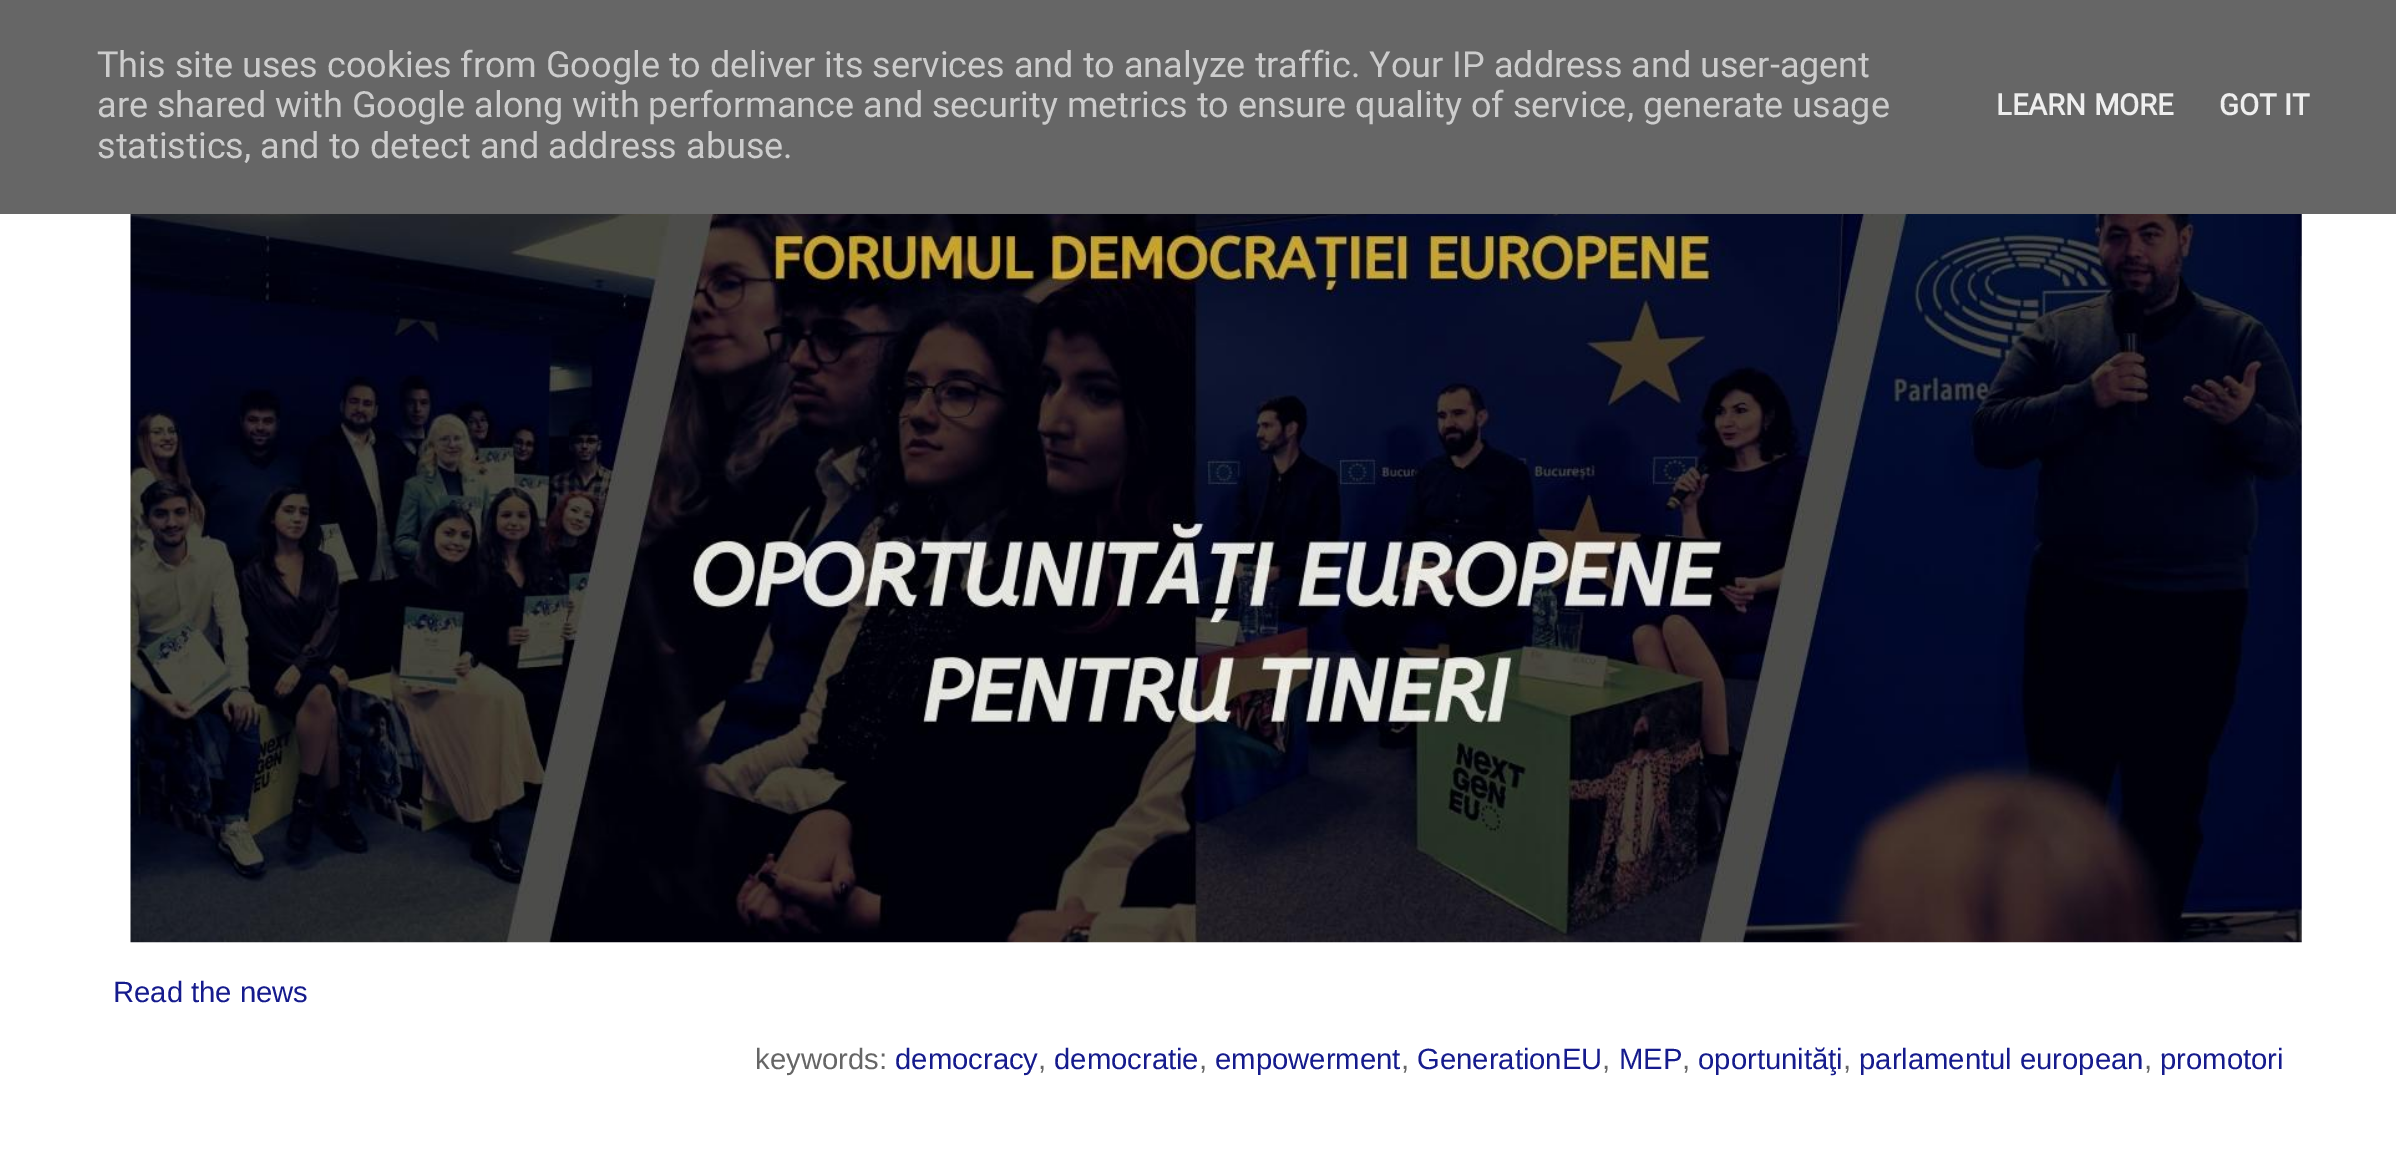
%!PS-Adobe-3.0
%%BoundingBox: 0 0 2396 1174
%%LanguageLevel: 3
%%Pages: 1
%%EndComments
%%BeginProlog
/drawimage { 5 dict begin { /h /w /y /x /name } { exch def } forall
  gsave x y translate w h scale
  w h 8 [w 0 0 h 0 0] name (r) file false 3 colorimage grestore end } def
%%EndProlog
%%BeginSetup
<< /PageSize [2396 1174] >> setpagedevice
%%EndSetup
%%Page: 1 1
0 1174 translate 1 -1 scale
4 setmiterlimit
1 setgray
0 0 2396 1174 rectfill
0.4 setgray
0 0 2396 214 rectfill
(images/1.raw) 130 214 2172 729 drawimage
/Roboto-Regular [36 0 0 -36 0 0] selectfont
0.8 setgray
97 77 moveto (This site uses cookies from Google to deliver its services and to analyze traffic. Your IP address and user-agent) show
97 117 moveto (are shared with Google along with performance and security metrics to ensure quality of service, generate usage) show
97 158 moveto (statistics, and to detect and address abuse.) show
/Roboto-Bold [29.25 0 0 -29.25 0 0] selectfont
0.933 setgray
1996 115 moveto (LEARN MORE) show
2219 115 moveto (GOT IT) show
/LiberationSans-Regular [29.25 0 0 -29.25 0 0] selectfont
0.082 0.106 0.553 setrgbcolor
113 1002 moveto (Read the news) show
0.4 setgray
755 1069 moveto (keywords:) show
0.082 0.106 0.553 setrgbcolor
895 1069 moveto (democracy) show
0.4 setgray
1038 1069 moveto (,) show
0.082 0.106 0.553 setrgbcolor
1054 1069 moveto (democratie) show
0.4 setgray
1199 1069 moveto (,) show
0.082 0.106 0.553 setrgbcolor
1215 1069 moveto (empowerment) show
0.4 setgray
1401 1069 moveto (,) show
0.082 0.106 0.553 setrgbcolor
1417 1069 moveto (GenerationEU) show
0.4 setgray
1602 1069 moveto (,) show
0.082 0.106 0.553 setrgbcolor
1619 1069 moveto (MEP) show
0.4 setgray
1682 1069 moveto (,) show
0.082 0.106 0.553 setrgbcolor
1698 1069 moveto (oportunităţi) show
0.4 setgray
1843 1069 moveto (,) show
0.082 0.106 0.553 setrgbcolor
1859 1069 moveto (parlamentul european) show
0.4 setgray
2144 1069 moveto (,) show
0.082 0.106 0.553 setrgbcolor
2160 1069 moveto (promotori) show
showpage
%%EOF
